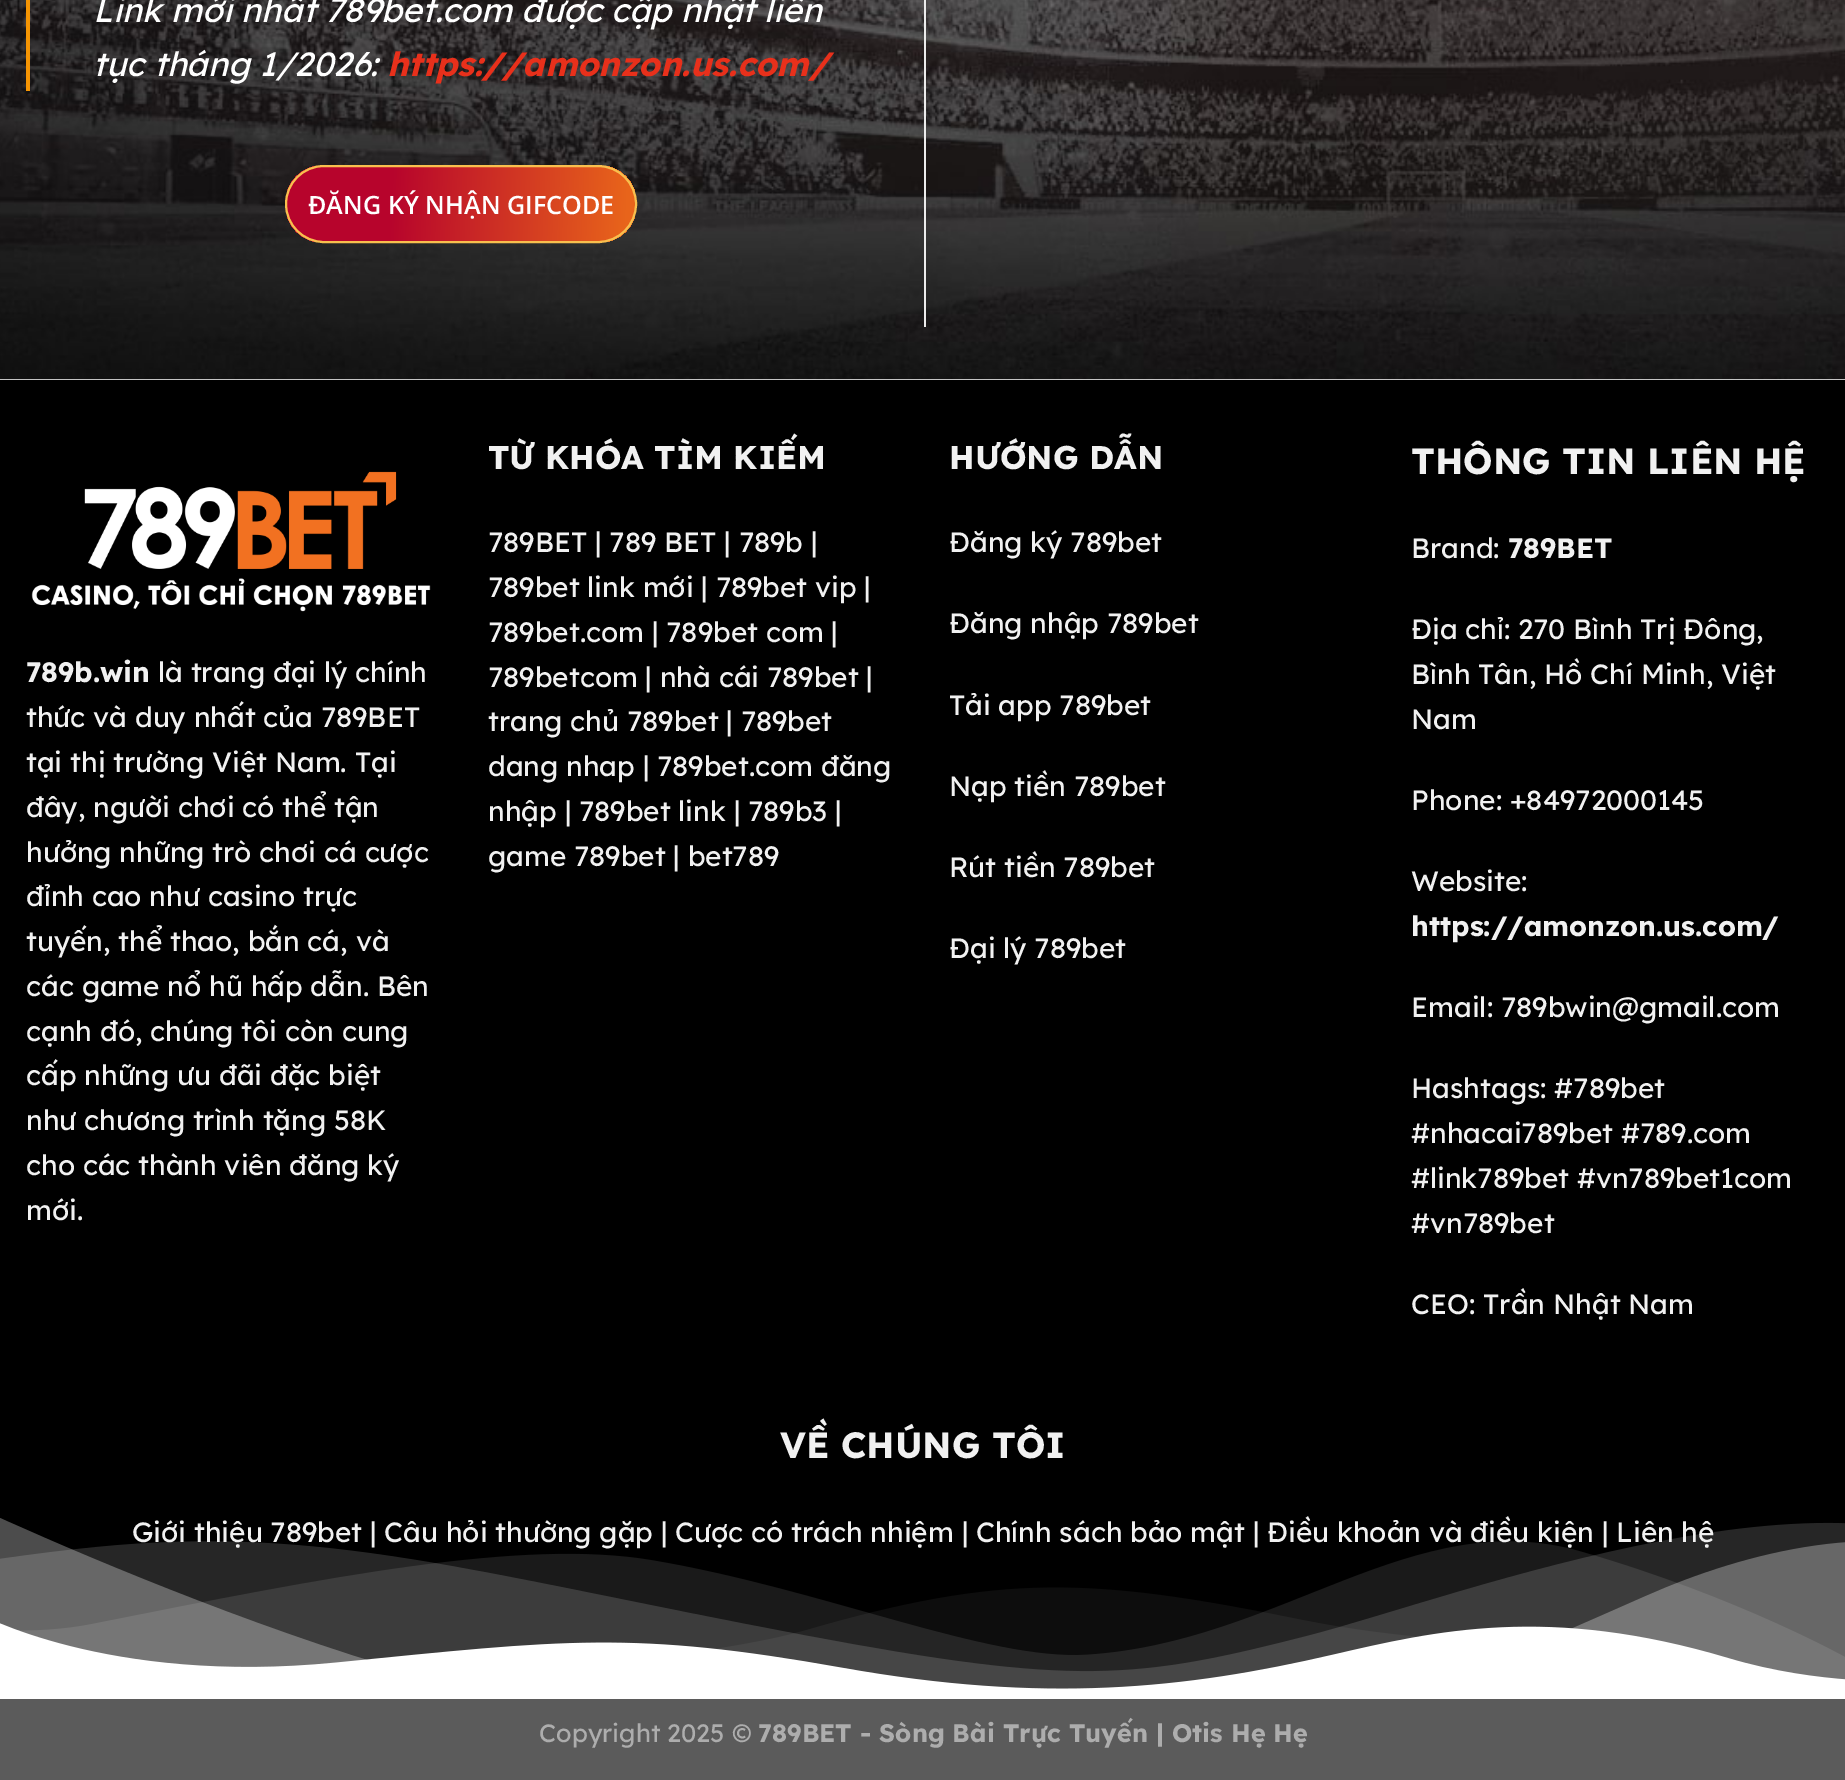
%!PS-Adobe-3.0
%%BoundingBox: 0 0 1845 1780
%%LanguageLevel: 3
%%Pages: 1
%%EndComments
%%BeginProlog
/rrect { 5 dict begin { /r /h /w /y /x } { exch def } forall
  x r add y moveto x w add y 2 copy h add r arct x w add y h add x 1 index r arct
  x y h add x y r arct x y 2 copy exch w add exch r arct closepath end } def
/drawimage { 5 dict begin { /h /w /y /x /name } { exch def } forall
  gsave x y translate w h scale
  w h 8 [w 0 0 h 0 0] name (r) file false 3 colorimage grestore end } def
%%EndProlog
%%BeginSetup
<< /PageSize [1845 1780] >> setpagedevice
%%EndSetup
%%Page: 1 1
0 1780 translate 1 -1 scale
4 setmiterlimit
1 setgray
0 0 1845 1780 rectfill
(images/1.raw) 0 0 1845 380 drawimage
0.965 0.584 0.012 setrgbcolor
26 0 4 91 rectfill
gsave
285 165 352 78 39 rrect clip newpath
gsave newpath 287 166 moveto 635 166 lineto 635 242 lineto 287 242 lineto closepath clip newpath
<< /ShadingType 2 /ColorSpace /DeviceRGB /Coords [286 196 637 212] /Extend [true true] /Function << /FunctionType 3 /Domain [0 1] /Functions [<< /FunctionType 2 /Domain [0 1] /C0 [0.718 0.016 0.173] /C1 [0.718 0.016 0.173] /N 1 >> << /FunctionType 2 /Domain [0 1] /C0 [0.718 0.016 0.173] /C1 [0.91 0.392 0.106] /N 1 >> << /FunctionType 2 /Domain [0 1] /C0 [0.91 0.392 0.106] /C1 [0.91 0.392 0.106] /N 1 >>] /Bounds [0.3 0.97] /Encode [0 1 0 1 0 1] >> >> shfill grestore
grestore
0.973 0.749 0.306 setrgbcolor
2 setlinewidth
286 166 350 76 38 rrect stroke
0.925 setgray
924 0 2 327 rectfill
0 setgray
0 380 1845 1309 rectfill
(images/2.raw) 31 471 400 141 drawimage
(images/3.raw) 0 1518 1845 181 drawimage
0.357 setgray
0 1699 1845 81 rectfill
/LexendDeca-Italic [33.6 0 0 -33.6 0 0] selectfont
1 setgray
93 22 moveto (Link mới nhất 789bet.com được cập nhật liên) show
93 76 moveto (tục tháng 1/2026:) show
/LexendDeca-BoldItalic [33.6 0 0 -33.6 0 0] selectfont
0.91 0.188 0.106 setrgbcolor
387 76 moveto (https://amonzon.us.com/) show
/OpenSans-SemiBold [25.2 0 0 -25.2 0 0] selectfont
1 setgray
308 214 moveto (ĐĂNG KÝ NHẬN GIFCODE) show
/LexendDeca-Bold [28 0 0 -28 0 0] selectfont
0.945 setgray
26 682 moveto (789b.win) show
/LexendDeca-Regular [28 0 0 -28 0 0] selectfont
158 682 moveto (là trang đại lý chính) show
26 727 moveto (thức và duy nhất của 789BET) show
26 772 moveto (tại thị trường Việt Nam. Tại) show
26 817 moveto (đây, người chơi có thể tận) show
26 862 moveto (hưởng những trò chơi cá cược) show
26 906 moveto (đỉnh cao như casino trực) show
26 951 moveto (tuyến, thể thao, bắn cá, và) show
26 996 moveto (các game nổ hũ hấp dẫn. Bên) show
26 1041 moveto (cạnh đó, chúng tôi còn cung) show
26 1085 moveto (cấp những ưu đãi đặc biệt) show
26 1130 moveto (như chương trình tặng 58K) show
26 1175 moveto (cho các thành viên đăng ký) show
26 1220 moveto (mới.) show
/LexendDeca-Bold [32.75 0 0 -32.75 0 0] selectfont
488 469 moveto (TỪ KHÓA TÌM KIẾM) show
/LexendDeca-Regular [28 0 0 -28 0 0] selectfont
488 552 moveto (789BET | 789 BET | 789b |) show
488 597 moveto (789bet link mới | 789bet vip |) show
488 642 moveto (789bet.com | 789bet com |) show
488 687 moveto (789betcom | nhà cái 789bet |) show
488 731 moveto (trang chủ 789bet | 789bet) show
488 776 moveto (dang nhap | 789bet.com đăng) show
488 821 moveto (nhập | 789bet link | 789b3 |) show
488 866 moveto (game 789bet | bet789) show
/LexendDeca-Bold [32.75 0 0 -32.75 0 0] selectfont
949 469 moveto (HƯỚNG DẪN) show
/LexendDeca-Regular [28 0 0 -28 0 0] selectfont
949 552 moveto (Đăng ký 789bet) show
949 633 moveto (Đăng nhập 789bet) show
949 715 moveto (Tải app 789bet) show
949 796 moveto (Nạp tiền 789bet) show
949 877 moveto (Rút tiền 789bet) show
949 958 moveto (Đại lý 789bet) show
/LexendDeca-Bold [36.4 0 0 -36.4 0 0] selectfont
1411 474 moveto (THÔNG TIN LIÊN HỆ) show
/LexendDeca-Regular [28 0 0 -28 0 0] selectfont
1411 558 moveto (Brand:) show
/LexendDeca-Bold [28 0 0 -28 0 0] selectfont
1508 558 moveto (789BET) show
/LexendDeca-Regular [28 0 0 -28 0 0] selectfont
1411 639 moveto (Địa chỉ: 270 Bình Trị Đông,) show
1411 684 moveto (Bình Tân, Hồ Chí Minh, Việt) show
1411 729 moveto (Nam) show
1411 810 moveto (Phone: +84972000145) show
1411 891 moveto (Website:) show
/LexendDeca-Bold [28 0 0 -28 0 0] selectfont
1411 936 moveto (https://amonzon.us.com/) show
/LexendDeca-Regular [28 0 0 -28 0 0] selectfont
1411 1017 moveto (Email: 789bwin@gmail.com) show
1411 1098 moveto (Hashtags: #789bet) show
1411 1143 moveto (#nhacai789bet #789.com) show
1411 1188 moveto (#link789bet #vn789bet1com) show
1411 1233 moveto (#vn789bet) show
1411 1314 moveto (CEO: Trần Nhật Nam) show
/LexendDeca-Bold [36.4 0 0 -36.4 0 0] selectfont
780 1458 moveto (VỀ CHÚNG TÔI) show
/LexendDeca-Regular [28 0 0 -28 0 0] selectfont
132 1542 moveto (Giới thiệu 789bet | Câu hỏi thường gặp | Cược có trách nhiệm | Chính sách bảo mật | Điều khoản và điều kiện | Liên hệ) show
/LexendDeca-Regular [25.2 0 0 -25.2 0 0] selectfont
0.678 setgray
539 1742 moveto (Copyright 2025 ©) show
/LexendDeca-Bold [25.2 0 0 -25.2 0 0] selectfont
758 1742 moveto (789BET - Sòng Bài Trực Tuyến | Otis Hẹ Hẹ) show
showpage
%%EOF
